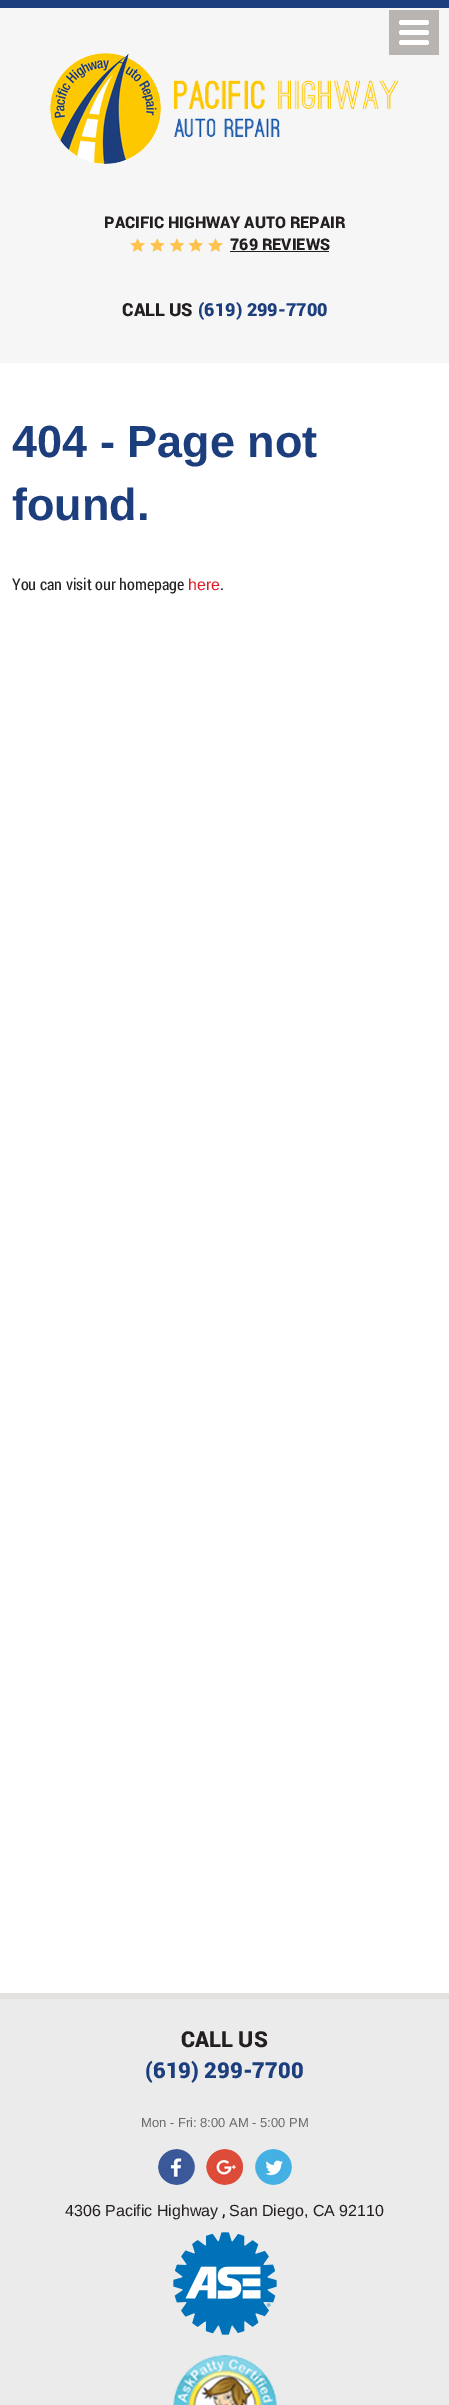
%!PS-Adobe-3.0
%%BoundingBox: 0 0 449 2405
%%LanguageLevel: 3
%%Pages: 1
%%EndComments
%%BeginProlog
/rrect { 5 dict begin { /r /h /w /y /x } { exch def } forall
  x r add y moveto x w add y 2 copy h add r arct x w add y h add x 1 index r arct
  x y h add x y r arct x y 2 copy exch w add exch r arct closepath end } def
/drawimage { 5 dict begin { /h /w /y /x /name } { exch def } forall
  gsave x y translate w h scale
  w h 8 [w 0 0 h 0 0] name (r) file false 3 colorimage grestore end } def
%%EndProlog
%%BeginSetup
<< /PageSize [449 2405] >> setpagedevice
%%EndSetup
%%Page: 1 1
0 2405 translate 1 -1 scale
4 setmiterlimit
1 setgray
0 0 449 2405 rectfill
0.114 0.243 0.49 setrgbcolor
0 0 449 8 rectfill
0.965 setgray
0 8 449 355 rectfill
(images/1.raw) 50 53 349 111 drawimage
0.718 0.706 0.698 setrgbcolor
389 10 50 45 rectfill
1 setgray
399 30 30 5 2.5 rrect fill
399 20 30 5 2.5 rrect fill
399 40 30 5 2.5 rrect fill
(images/2.raw) 130 238 93 14 drawimage
0.137 0.122 0.125 setrgbcolor
230 251 99 1 rectfill
0.922 setgray
0 1999 449 406 rectfill
0.894 0.886 0.882 setrgbcolor
0 1993 449 6 rectfill
(images/3.raw) 158 2149 37 36 drawimage
(images/4.raw) 206 2149 37 36 drawimage
(images/5.raw) 255 2149 37 36 drawimage
(images/6.raw) 173 2232 104 103 drawimage
(images/7.raw) 173 2355 104 50 drawimage
/Roboto-Black [16 0 0 -16 0 0] selectfont
0.137 0.122 0.125 setrgbcolor
104 228 moveto (PACIFIC HIGHWAY AUTO REPAIR) show
230 250 moveto (769 REVIEWS) show
/Roboto-Black [18 0 0 -18 0 0] selectfont
122 316 moveto (CALL US) show
0.114 0.243 0.49 setrgbcolor
198 316 moveto (\(619\) 299-7700) show
/LiberationSans-Bold [45 0 0 -45 0 0] selectfont
12 457 moveto (404 - Page not) show
12 520 moveto (found.) show
/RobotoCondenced-Regular [16 0 0 -16 0 0] selectfont
0.145 setgray
12 590 moveto (You can visit our homepage) show
/LiberationSans-Regular [16 0 0 -16 0 0] selectfont
0.867 0.11 0.153 setrgbcolor
188 590 moveto (here) show
/RobotoCondenced-Regular [16 0 0 -16 0 0] selectfont
0.145 setgray
220 590 moveto (.) show
/Roboto-Black [22 0 0 -22 0 0] selectfont
0.137 0.122 0.125 setrgbcolor
181 2047 moveto (CALL US) show
0.114 0.243 0.49 setrgbcolor
145 2078 moveto (\(619\) 299-7700) show
/LiberationSans-Regular [13 0 0 -13 0 0] selectfont
0.416 setgray
141 2127 moveto (Mon - Fri: 8:00 AM - 5:00 PM) show
/LiberationSans-Regular [16 0 0 -16 0 0] selectfont
0.137 0.122 0.125 setrgbcolor
65 2216 moveto (4306 Pacific Highway) show
/Roboto-Medium [16 0 0 -16 0 0] selectfont
222 2216 moveto (,) show
/LiberationSans-Regular [16 0 0 -16 0 0] selectfont
229 2216 moveto (San Diego, CA 92110) show
showpage
%%EOF
